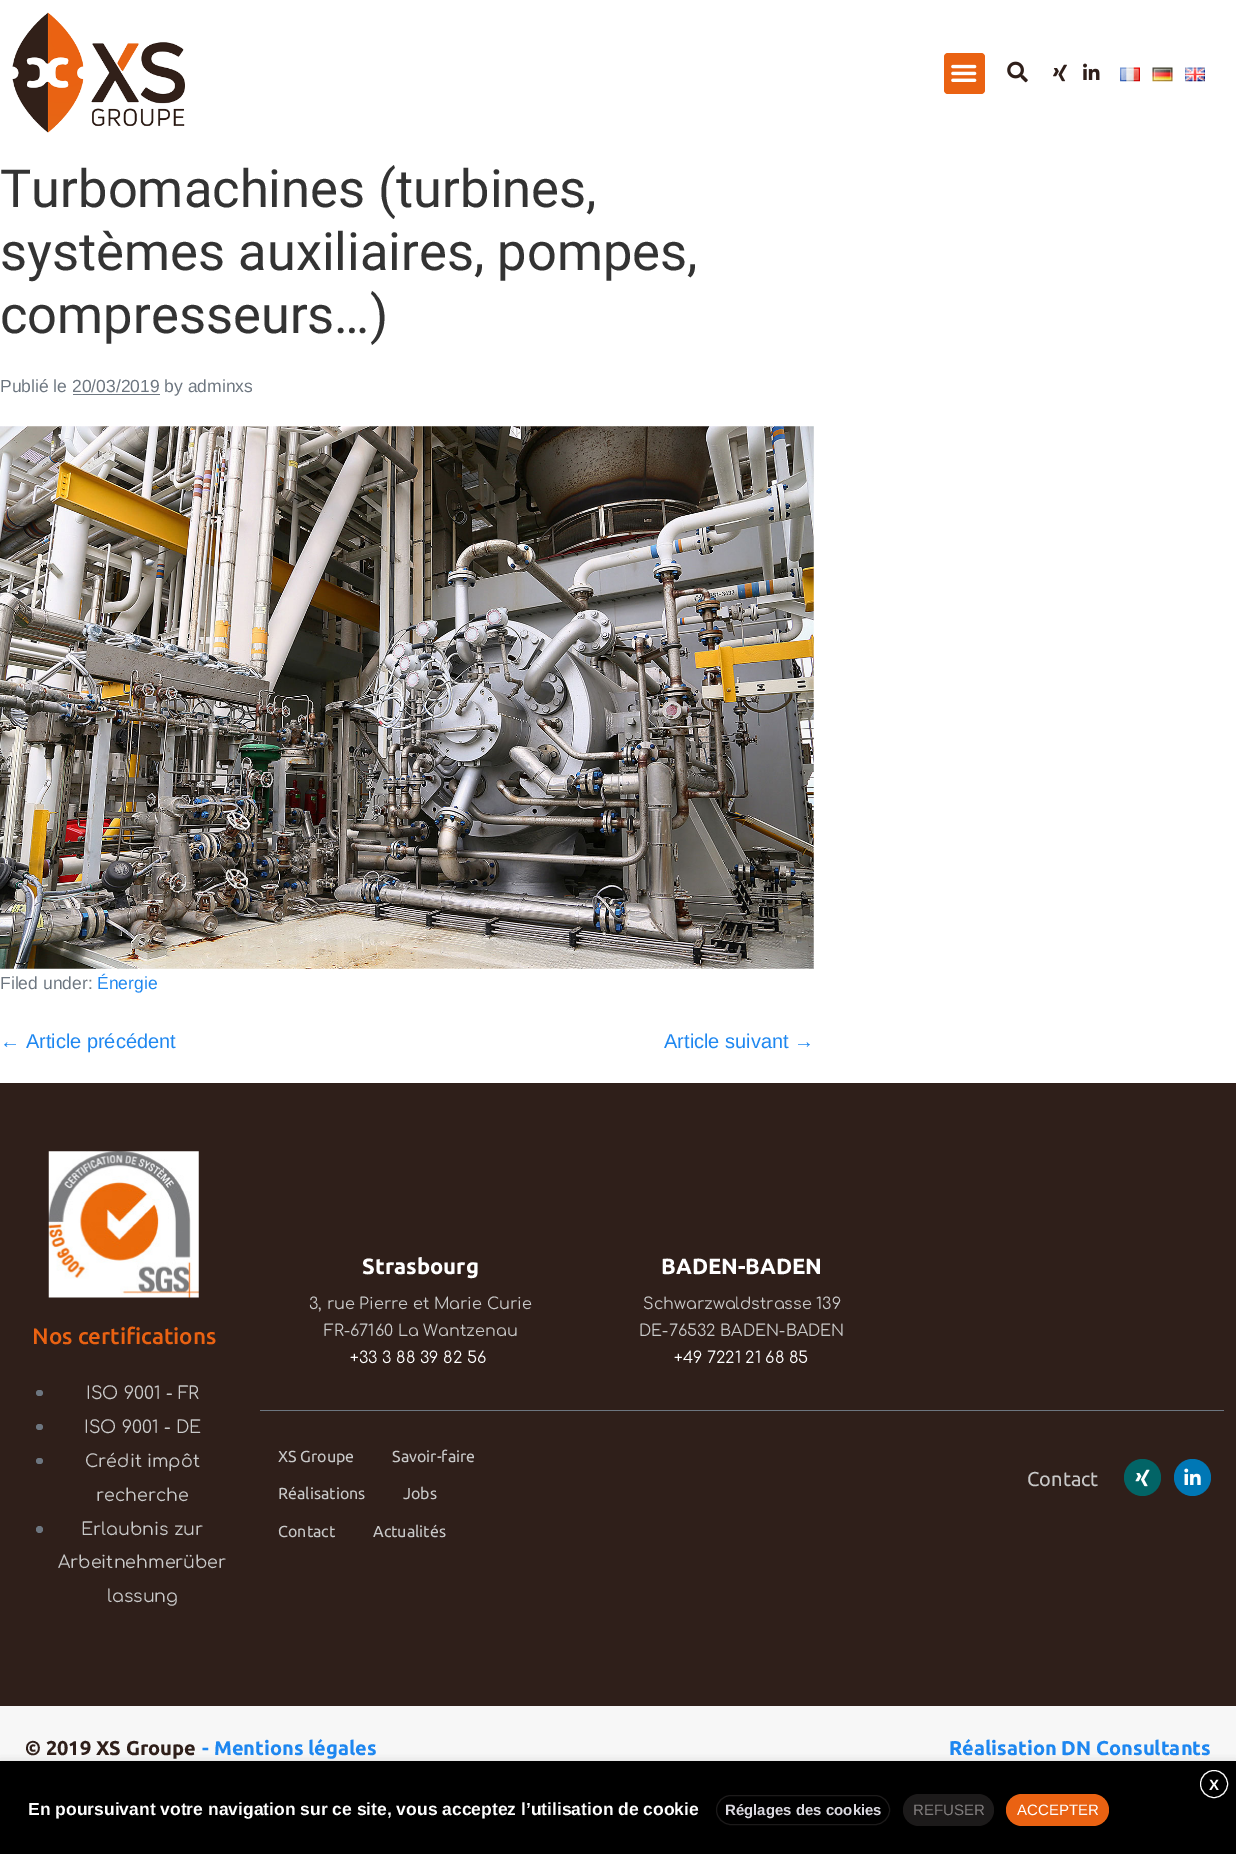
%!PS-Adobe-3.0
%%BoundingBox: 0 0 1236 1854
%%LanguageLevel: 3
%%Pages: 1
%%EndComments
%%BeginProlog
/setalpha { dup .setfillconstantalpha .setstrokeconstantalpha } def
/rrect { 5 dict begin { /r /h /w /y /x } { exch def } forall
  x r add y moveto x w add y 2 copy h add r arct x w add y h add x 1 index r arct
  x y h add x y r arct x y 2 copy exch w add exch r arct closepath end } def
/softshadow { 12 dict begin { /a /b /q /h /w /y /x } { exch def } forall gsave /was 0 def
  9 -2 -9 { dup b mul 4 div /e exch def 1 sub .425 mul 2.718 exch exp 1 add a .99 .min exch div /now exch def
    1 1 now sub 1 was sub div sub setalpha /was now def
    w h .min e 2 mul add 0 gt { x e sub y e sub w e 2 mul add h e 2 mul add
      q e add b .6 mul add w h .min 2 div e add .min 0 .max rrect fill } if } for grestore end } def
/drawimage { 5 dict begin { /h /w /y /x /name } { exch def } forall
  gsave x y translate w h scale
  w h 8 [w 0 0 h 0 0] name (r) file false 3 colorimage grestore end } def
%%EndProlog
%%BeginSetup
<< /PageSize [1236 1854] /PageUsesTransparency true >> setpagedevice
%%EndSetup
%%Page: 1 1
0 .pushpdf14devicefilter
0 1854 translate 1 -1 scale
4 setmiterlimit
1 setgray
0 0 1236 1854 rectfill
(images/1.raw) 12 12 173 121 drawimage
0.918 0.384 0.071 setrgbcolor
944 53 41 41 4 rrect fill
(images/2.raw) 951 64 26 18 drawimage
(images/3.raw) 1007 61 21 22 drawimage
(images/4.raw) 1053 64 14 18 drawimage
(images/5.raw) 1083 63 17 17 drawimage
(images/6.raw) 1120 67 20 15 drawimage
(images/7.raw) 1152 67 21 15 drawimage
(images/8.raw) 1185 67 20 15 drawimage
0.427 0.463 0.502 setrgbcolor
73 394 87 1 rectfill
(images/9.raw) 0 426 814 543 drawimage
0.184 0.122 0.102 setrgbcolor
0 1083 1236 623 rectfill
(images/10.raw) 48 1151 151 147 drawimage
0.427 0.463 0.502 setrgbcolor
36 1390 7 6 3 rrect fill
36 1424 7 6 3 rrect fill
36 1458 7 6 3 rrect fill
newpath 39.5 1529.5 3.5 0 360 arc closepath fill
260 1410 964 1 rectfill
0.008 0.392 0.4 setrgbcolor
newpath 1142.5 1477.5 18.5 0 360 arc closepath fill
(images/11.raw) 1135 1469 15 18 drawimage
0 0.467 0.71 setrgbcolor
newpath 1192.5 1477.5 18.5 0 360 arc closepath fill
(images/12.raw) 1184 1468 17 17 drawimage
0.969 setgray
0 1706 1236 55 rectfill
0 setgray
0 1768 1236 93 0 6 0.5 softshadow
0 1761 1236 93 rectfill
1 setgray
newpath 1214 1784 13.5 0 360 arc closepath stroke
0.11 0.102 0.102 setrgbcolor
716.5 1795.5 173 29 14.5 rrect stroke
903 1794 91 32 16 rrect fill
0.918 0.384 0.071 setrgbcolor
1006 1794 103 32 16 rrect fill
/Roboto-Regular [52.5 0 0 -52.5 0 0] selectfont
0.2 setgray
0 207 moveto (Turbomachines \(turbines,) show
0 270 moveto (systèmes auxiliaires, pompes,) show
0 333 moveto (compresseurs…\)) show
/LiberationSans-Regular [17.5 0 0 -17.5 0 0] selectfont
0.427 0.463 0.502 setrgbcolor
0 392 moveto (Publié le 20/03/2019 by adminxs) show
0 989 moveto (Filed under:) show
0.118 0.529 0.941 setrgbcolor
97 989 moveto (Énergie) show
/LiberationSans-Regular [20 0 0 -20 0 0] selectfont
0 1048 moveto (← Article précédent) show
664 1048 moveto (Article suivant →) show
/Ubuntu-Medium [22.5 0 0 -22.5 0 0] selectfont
0.918 0.384 0.071 setrgbcolor
32 1344 moveto (Nos certifications) show
/Comfortaa-Regular [17.5 0 0 -17.5 0 0] selectfont
0.788 setgray
86 1399 moveto (ISO 9001 - FR) show
84 1433 moveto (ISO 9001 - DE) show
85 1467 moveto (Crédit impôt) show
96 1501 moveto (recherche) show
81 1535 moveto (Erlaubnis zur) show
58 1568 moveto (Arbeitnehmerüber) show
107 1602 moveto (lassung) show
/Ubuntu-Bold [22 0 0 -22 0 0] selectfont
1 setgray
362 1274 moveto (Strasbourg) show
/Comfortaa-Regular [16 0 0 -16 0 0] selectfont
0.788 setgray
309 1309 moveto (3, rue Pierre et Marie Curie) show
324 1336 moveto (FR-67160 La Wantzenau) show
1 setgray
350 1363 moveto (+33 3 88 39 82 56) show
/Ubuntu-Bold [22 0 0 -22 0 0] selectfont
661 1274 moveto (BADEN-BADEN) show
/Comfortaa-Regular [16 0 0 -16 0 0] selectfont
0.788 setgray
643 1309 moveto (Schwarzwaldstrasse 139) show
639 1336 moveto (DE-76532 BADEN-BADEN) show
1 setgray
674 1363 moveto (+49 7221 21 68 85) show
/Ubuntu-Regular [16 0 0 -16 0 0] selectfont
0.788 setgray
278 1462 moveto (XS Groupe) show
392 1462 moveto (Savoir-faire) show
278 1499 moveto (Réalisations) show
403 1499 moveto (Jobs) show
278 1537 moveto (Contact) show
373 1537 moveto (Actualités) show
/Ubuntu-Regular [20 0 0 -20 0 0] selectfont
1027 1486 moveto (Contact) show
/Ubuntu-Bold [20 0 0 -20 0 0] selectfont
0.184 0.122 0.102 setrgbcolor
25 1755 moveto (© 2019 XS Groupe) show
0.118 0.529 0.941 setrgbcolor
202 1755 moveto (- Mentions légales) show
949 1755 moveto (Réalisation DN Consultants) show
/LiberationSans-Bold [15 0 0 -15 0 0] selectfont
1 setgray
1209 1790 moveto (X) show
/LiberationSans-Bold [17.5 0 0 -17.5 0 0] selectfont
28 1815 moveto (En poursuivant votre navigation sur ce site, vous acceptez l’utilisation de cookie) show
/LiberationSans-Bold [15 0 0 -15 0 0] selectfont
0.859 0.851 0.878 setrgbcolor
725 1815 moveto (Réglages des cookies) show
/LiberationSans-Regular [15 0 0 -15 0 0] selectfont
0.51 0.494 0.494 setrgbcolor
913 1815 moveto (REFUSER) show
1 setgray
1017 1815 moveto (ACCEPTER) show
.poppdf14devicefilter showpage
%%EOF
